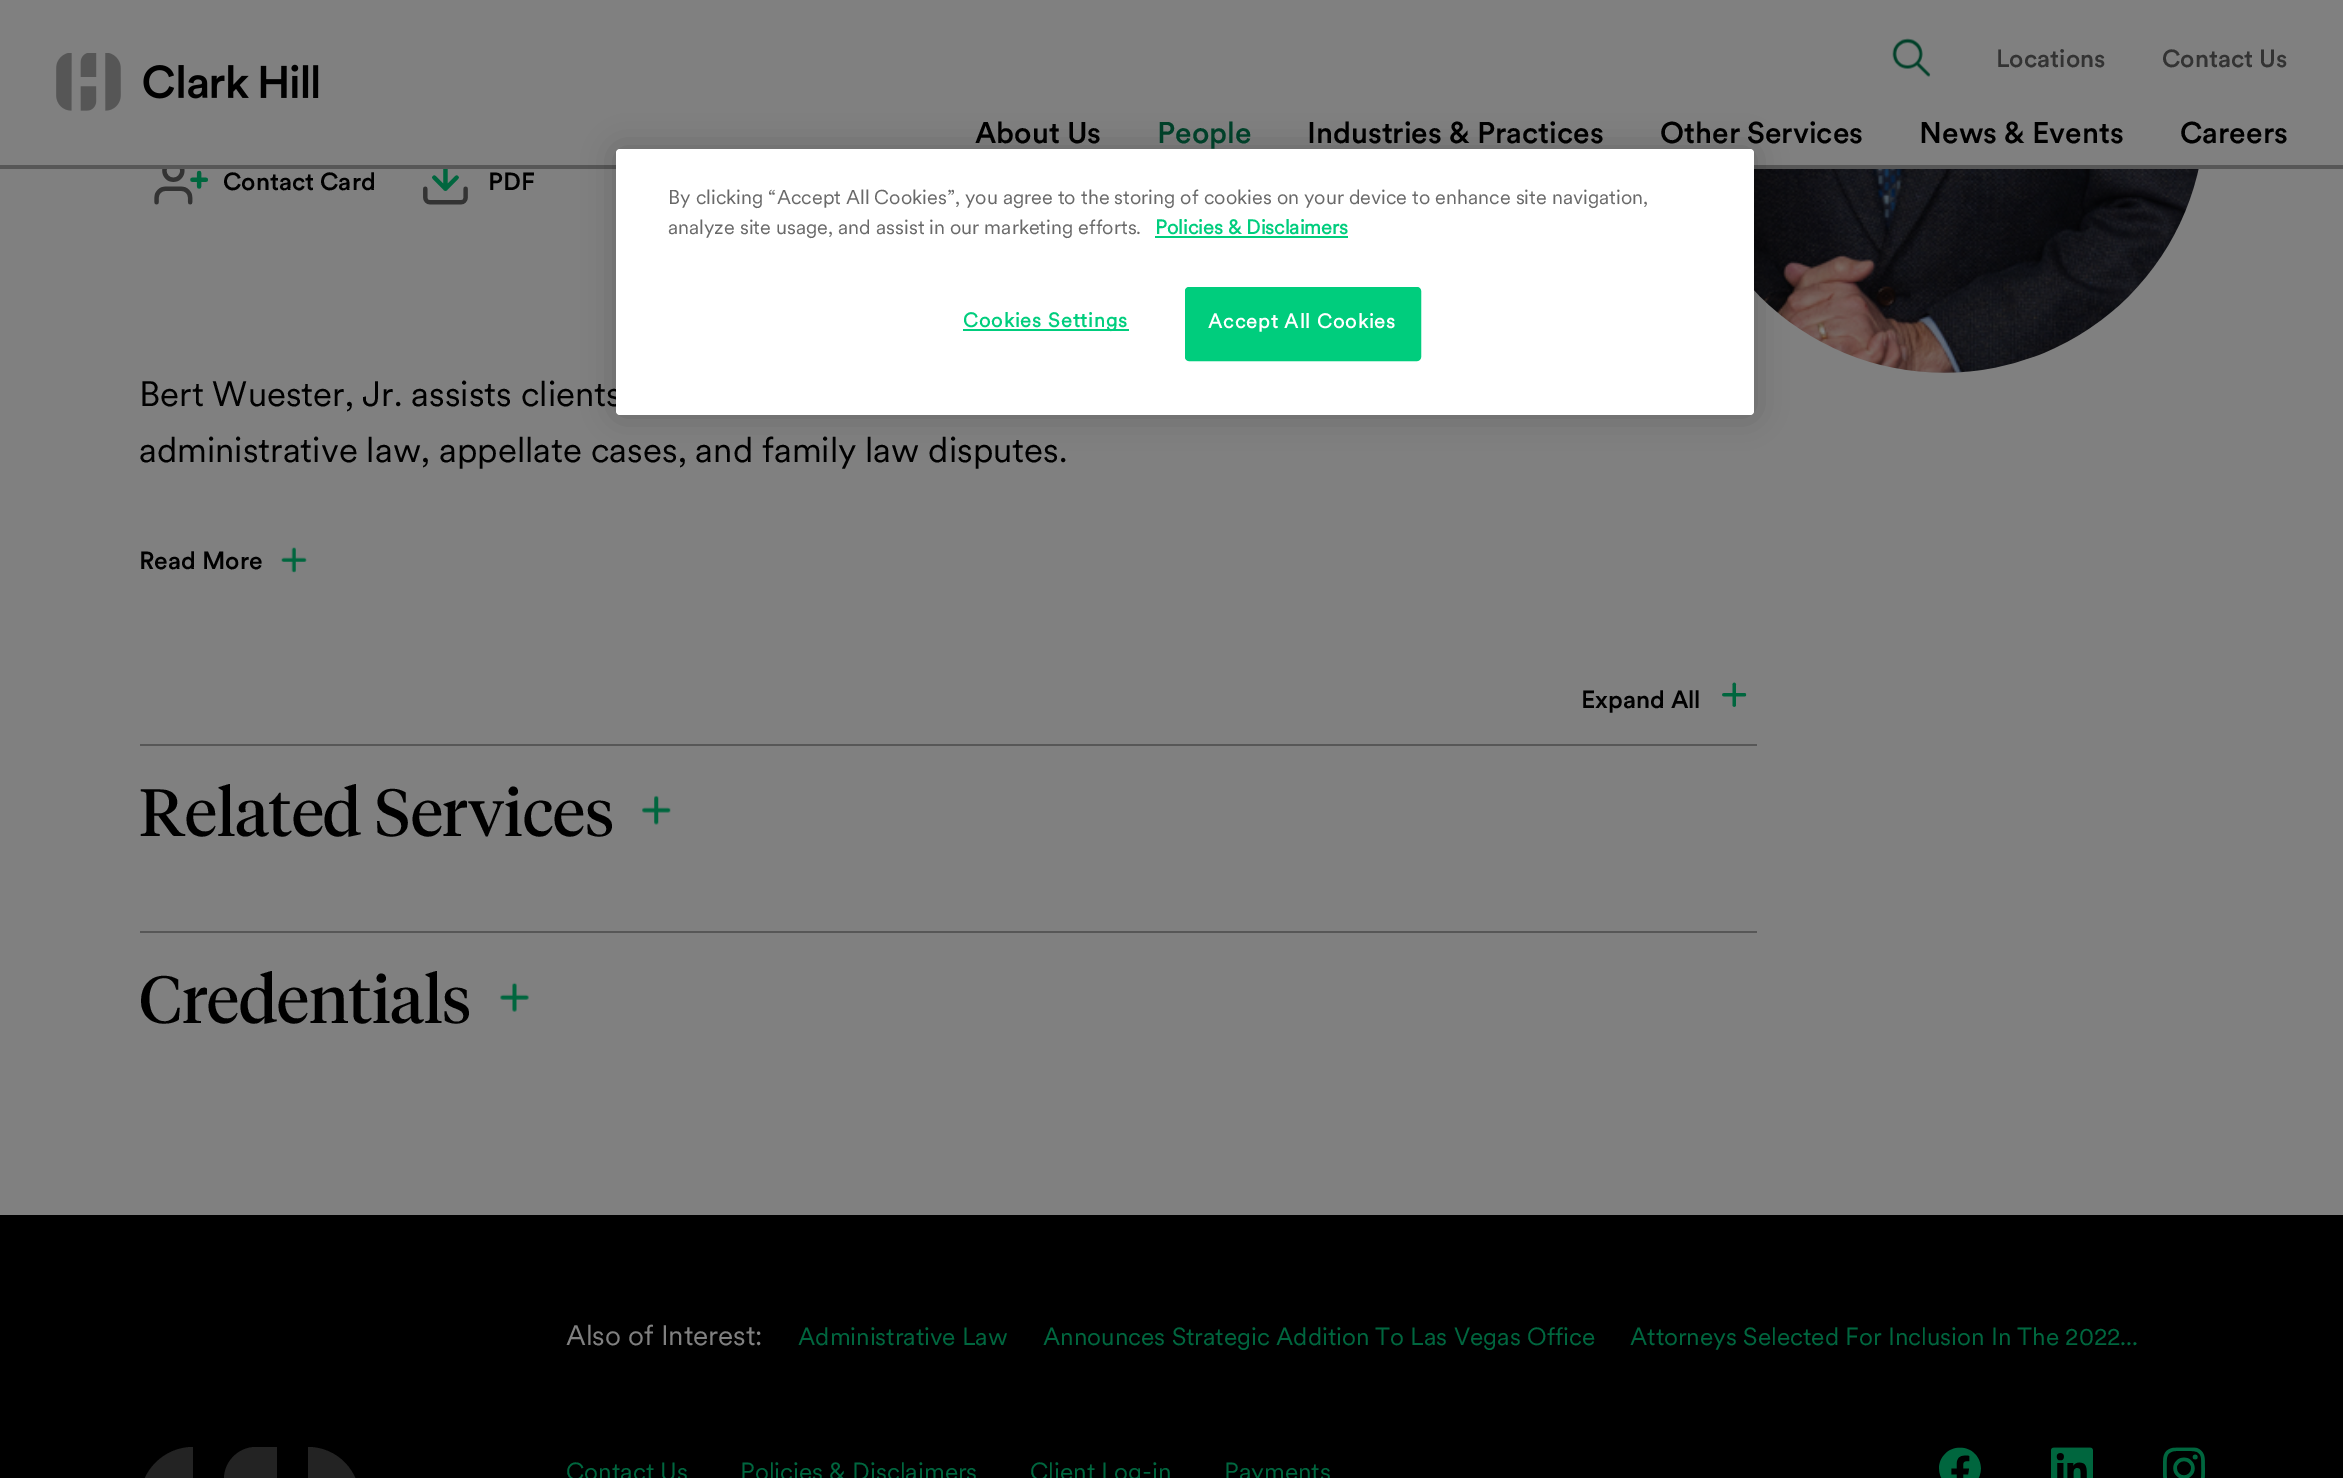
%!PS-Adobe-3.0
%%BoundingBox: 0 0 2343 1478
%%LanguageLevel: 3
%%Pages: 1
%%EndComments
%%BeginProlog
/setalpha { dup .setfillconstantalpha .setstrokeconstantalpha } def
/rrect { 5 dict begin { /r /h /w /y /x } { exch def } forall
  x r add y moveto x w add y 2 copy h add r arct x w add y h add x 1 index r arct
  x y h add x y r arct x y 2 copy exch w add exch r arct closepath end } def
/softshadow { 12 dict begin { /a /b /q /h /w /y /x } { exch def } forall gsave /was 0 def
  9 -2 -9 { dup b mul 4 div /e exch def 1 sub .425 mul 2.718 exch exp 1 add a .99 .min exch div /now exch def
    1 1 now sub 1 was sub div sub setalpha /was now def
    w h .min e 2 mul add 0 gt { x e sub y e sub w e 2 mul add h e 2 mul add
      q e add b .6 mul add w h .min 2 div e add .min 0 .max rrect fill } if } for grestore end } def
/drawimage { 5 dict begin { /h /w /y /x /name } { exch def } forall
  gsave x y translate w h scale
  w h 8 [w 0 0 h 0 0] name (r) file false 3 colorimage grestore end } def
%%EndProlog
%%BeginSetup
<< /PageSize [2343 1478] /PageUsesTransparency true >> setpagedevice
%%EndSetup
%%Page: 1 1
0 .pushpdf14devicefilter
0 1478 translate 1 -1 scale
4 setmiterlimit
0.502 setgray
0 0 2343 1478 rectfill
(images/1.raw) 56 53 263 58 drawimage
(images/2.raw) 1892 38 39 39 drawimage
0.341 setgray
0 165 2343 4 rectfill
(images/3.raw) 154 169 54 36 drawimage
(images/4.raw) 423 169 45 36 drawimage
(images/5.raw) 1754 169 445 204 drawimage
(images/6.raw) 281 547 26 26 drawimage
(images/7.raw) 1722 682 25 25 drawimage
140 744 1617 2 rectfill
(images/8.raw) 642 795 29 30 drawimage
140 931 1617 2 rectfill
(images/9.raw) 500 982 29 30 drawimage
0 setgray
0 1215 2343 263 rectfill
0.137 setgray
newpath 193 1447 moveto 193 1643 lineto 163 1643 140 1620 140 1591 curveto 140 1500 lineto 140 1471 164 1447 193 1447 curveto closepath fill
newpath 277 1447 moveto 256 1447 lineto 238 1447 224 1462 224 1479 curveto 224 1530 lineto 277 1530 lineto closepath fill
newpath 308 1447 moveto 308 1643 lineto 337 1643 361 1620 360 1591 curveto 360 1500 lineto 360 1471 337 1447 308 1447 curveto closepath fill
(images/10.raw) 1939 1447 42 31 drawimage
(images/11.raw) 2051 1447 42 31 drawimage
(images/12.raw) 2163 1447 42 31 drawimage
0 setgray
616 149 1138 266 4 16 0.2 softshadow
/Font-Medium [24.5 0 0 -24.5 0 0] selectfont
0.2 setgray
1996 67 moveto (Locations) show
2162 67 moveto (Contact Us) show
/Font-Medium [29.75 0 0 -29.75 0 0] selectfont
0 setgray
975 143 moveto (About Us) show
0 0.251 0.161 setrgbcolor
1157 143 moveto (People) show
0 setgray
1307 143 moveto (Industries & Practices) show
1660 143 moveto (Other Services) show
1919 143 moveto (News & Events) show
2180 143 moveto (Careers) show
/Font-Medium [24.5 0 0 -24.5 0 0] selectfont
223 190 moveto (Contact Card) show
488 190 moveto (PDF) show
/Font-Regular [35 0 0 -35 0 0] selectfont
139 406 moveto (Bert Wuester, Jr. assists clients) show
139 462 moveto (administrative law, appellate cases, and family law disputes.) show
/Font-Medium [24.5 0 0 -24.5 0 0] selectfont
139 569 moveto (Read More) show
1581 708 moveto (Expand All) show
/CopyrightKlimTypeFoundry-Regular [66.5 0 0 -66.5 0 0] selectfont
139 836 moveto (Related Services) show
139 1023 moveto (Credentials) show
/Font-Regular [28 0 0 -28 0 0] selectfont
0.502 setgray
566 1345 moveto (Also of Interest:) show
/Font-Regular [24.5 0 0 -24.5 0 0] selectfont
0 0.404 0.247 setrgbcolor
798 1345 moveto (Administrative Law) show
1043 1345 moveto (Announces Strategic Addition To Las Vegas Office) show
1630 1345 moveto (Attorneys Selected For Inclusion In The 2022...) show
566 1480 moveto (Contact Us) show
740 1480 moveto (Policies & Disclaimers) show
1030 1480 moveto (Client Log-in) show
1224 1480 moveto (Payments) show
1 setgray
616 149 1138 266 4 rrect fill
/Font-Regular [19.9 0 0 -19.9 0 0] selectfont
0.412 setgray
668 204 moveto (By clicking “Accept All Cookies”, you agree to the storing of cookies on your device to enhance site navigation,) show
668 234 moveto (analyze site usage, and assist in our marketing efforts.) show
/Font-Bold [19.9 0 0 -19.9 0 0] selectfont
0 0.804 0.49 setrgbcolor
1155 234 moveto (Policies & Disclaimers) show
1155 236 193 2 rectfill
963 329 166 2 rectfill
963 327 moveto 1 0 (Cookies Settings) ashow
1186 288 234 72 3 rrect gsave fill grestore
2 setlinewidth
stroke
1 setgray
1208 328 moveto 1 0 (Accept All Cookies) ashow
.poppdf14devicefilter showpage
%%EOF
